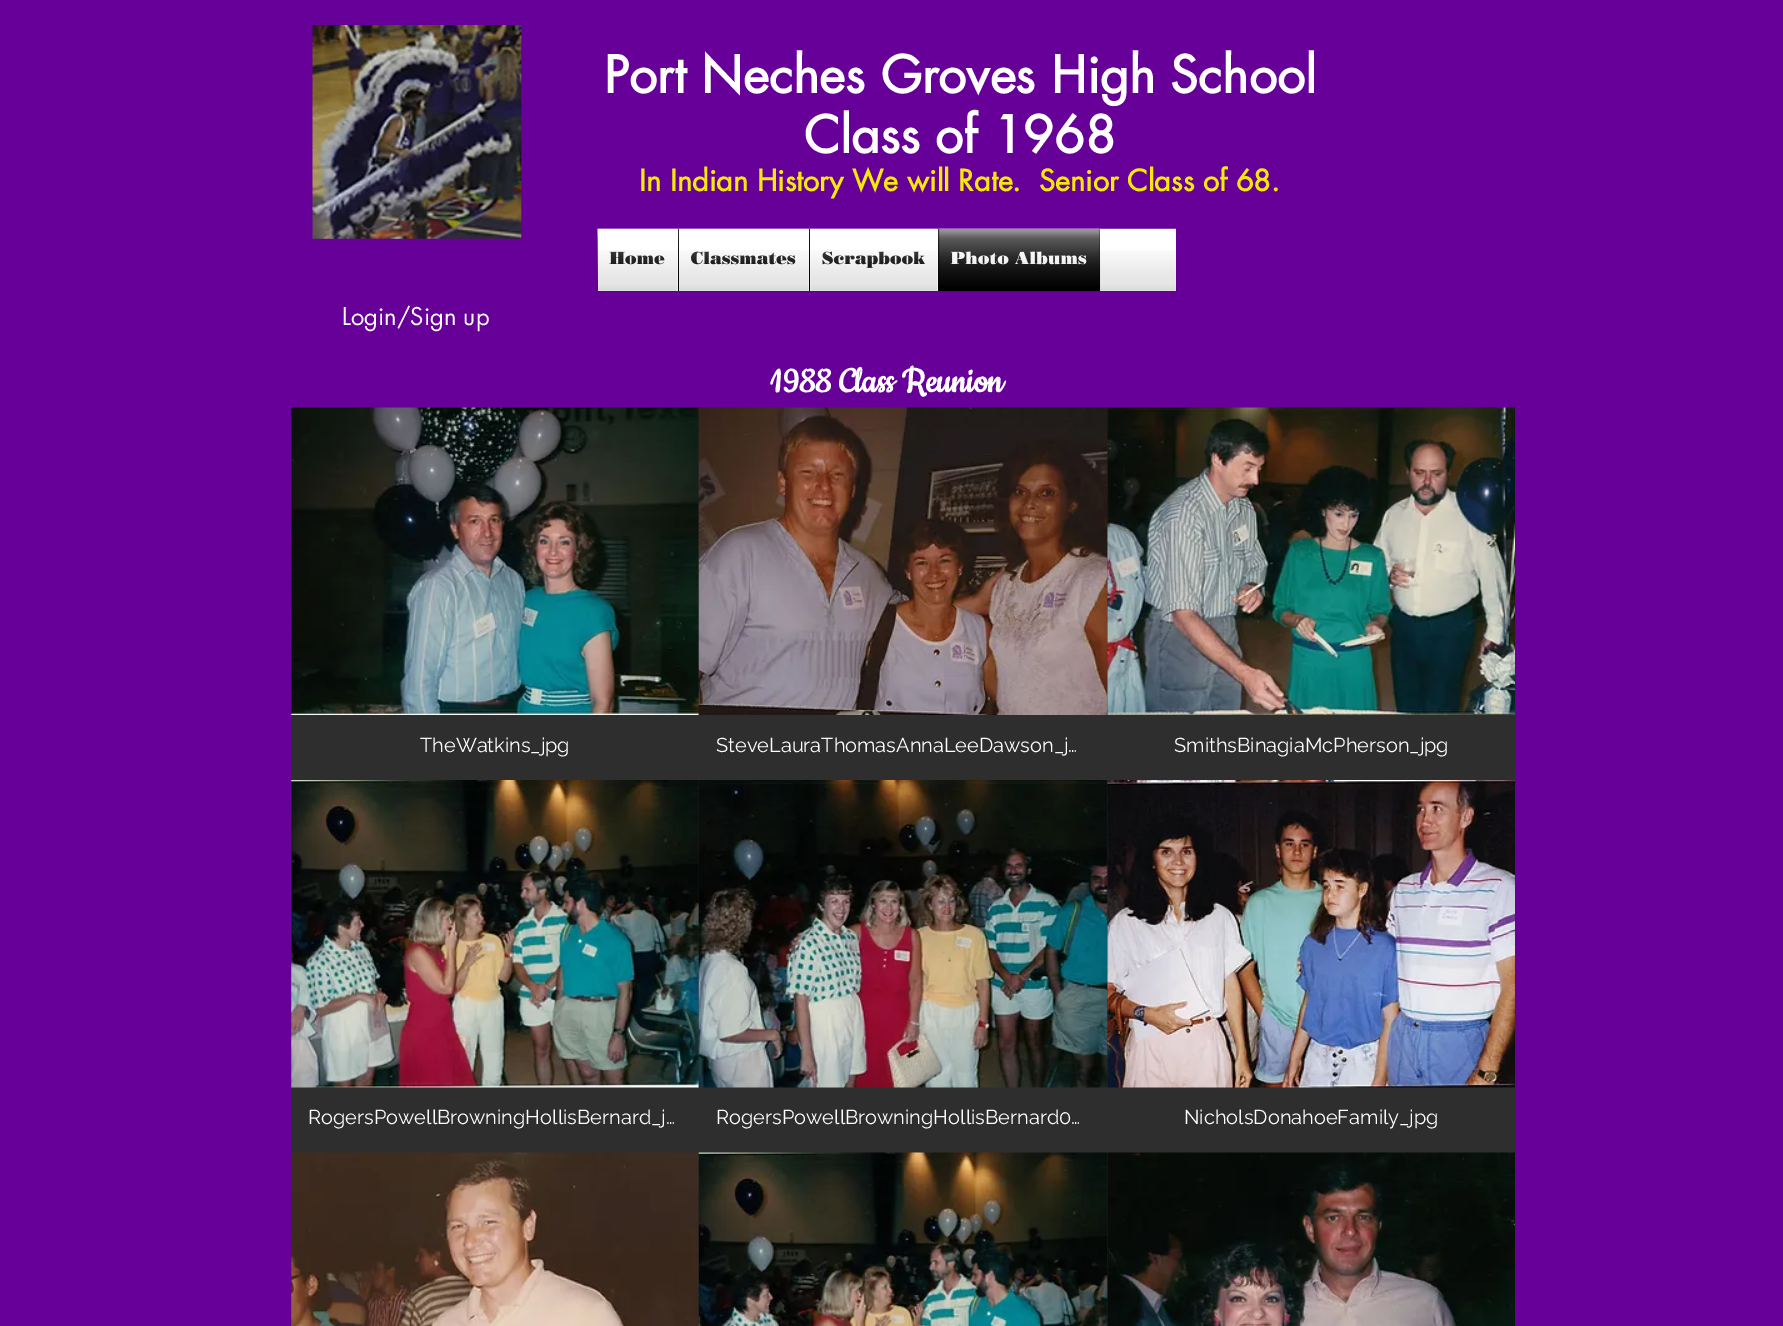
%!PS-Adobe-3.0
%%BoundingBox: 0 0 1783 1326
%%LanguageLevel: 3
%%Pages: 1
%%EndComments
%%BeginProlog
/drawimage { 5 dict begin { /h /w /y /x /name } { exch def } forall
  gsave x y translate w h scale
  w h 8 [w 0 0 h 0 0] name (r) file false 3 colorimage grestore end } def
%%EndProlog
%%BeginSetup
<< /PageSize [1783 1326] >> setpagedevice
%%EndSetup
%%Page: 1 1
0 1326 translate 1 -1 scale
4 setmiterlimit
0.4 0 0.6 setrgbcolor
0 0 1783 1326 rectfill
(images/1.raw) 312 25 210 214 drawimage
1 setgray
1100 229 76 62 rectfill
(images/2.raw) 597 228 579 52 drawimage
(images/3.raw) 598 250 579 42 drawimage
598 229 80 62 rectfill
679 229 130 62 rectfill
0 setgray
678 229 1 62 rectfill
1 setgray
810 229 128 62 rectfill
0 setgray
809 229 1 62 rectfill
938 229 162 62 rectfill
(images/12.raw) 291 407 408 308 drawimage
0.184 0.18 0.18 setrgbcolor
291 715 1224 65 rectfill
(images/13.raw) 698 407 410 308 drawimage
(images/14.raw) 1107 407 408 308 drawimage
291 780 408 373 rectfill
(images/15.raw) 291 780 408 308 drawimage
699 780 409 373 rectfill
(images/16.raw) 698 780 410 308 drawimage
1108 1087 407 66 rectfill
(images/17.raw) 1107 780 408 308 drawimage
(images/18.raw) 291 1152 408 174 drawimage
(images/19.raw) 698 1152 410 174 drawimage
(images/20.raw) 1107 1152 408 174 drawimage
/futura-Bold [50 0 0 -50 0 0] selectfont
1 setgray
604 93 moveto (Port Neches Groves High School) show
804 153 moveto (Class of 1968) show
/futura-Bold [28.75 0 0 -28.75 0 0] selectfont
0.961 0.914 0.039 setrgbcolor
639 191 moveto (In Indian History We will Rate.  Senior Class of 68.) show
/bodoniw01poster-Black [17.5 0 0 -17.5 0 0] selectfont
0 setgray
609 264 moveto (Home) show
(images/4.raw) 597 228 81 52 drawimage
(images/5.raw) 597 250 81 42 drawimage
691 264 moveto (Classmates) show
(images/6.raw) 678 228 131 48 drawimage
(images/7.raw) 679 250 130 42 drawimage
822 264 moveto (Scrapbook) show
(images/8.raw) 809 228 129 42 drawimage
(images/9.raw) 810 250 128 42 drawimage
1 setgray
951 264 moveto (Photo Albums) show
(images/10.raw) 938 228 163 57 drawimage
(images/11.raw) 939 252 162 40 drawimage
/futura-Regular [23.75 0 0 -23.75 0 0] selectfont
342 325 moveto (Login/Sign up) show
/Cookie-Bold [40 0 0 -40 0 0] selectfont
769 392 moveto (1988 Class Reunion) show
/Raleway-Regular [20 0 0 -20 0 0] selectfont
420 752 moveto (TheWatkins_jpg) show
716 752 moveto (SteveLauraThomasAnnaLeeDawson_j…) show
1174 752 moveto (SmithsBinagiaMcPherson_jpg) show
308 1124 moveto (RogersPowellBrowningHollisBernard_j…) show
716 1124 moveto (RogersPowellBrowningHollisBernard0…) show
1184 1124 moveto (NicholsDonahoeFamily_jpg) show
showpage
%%EOF
